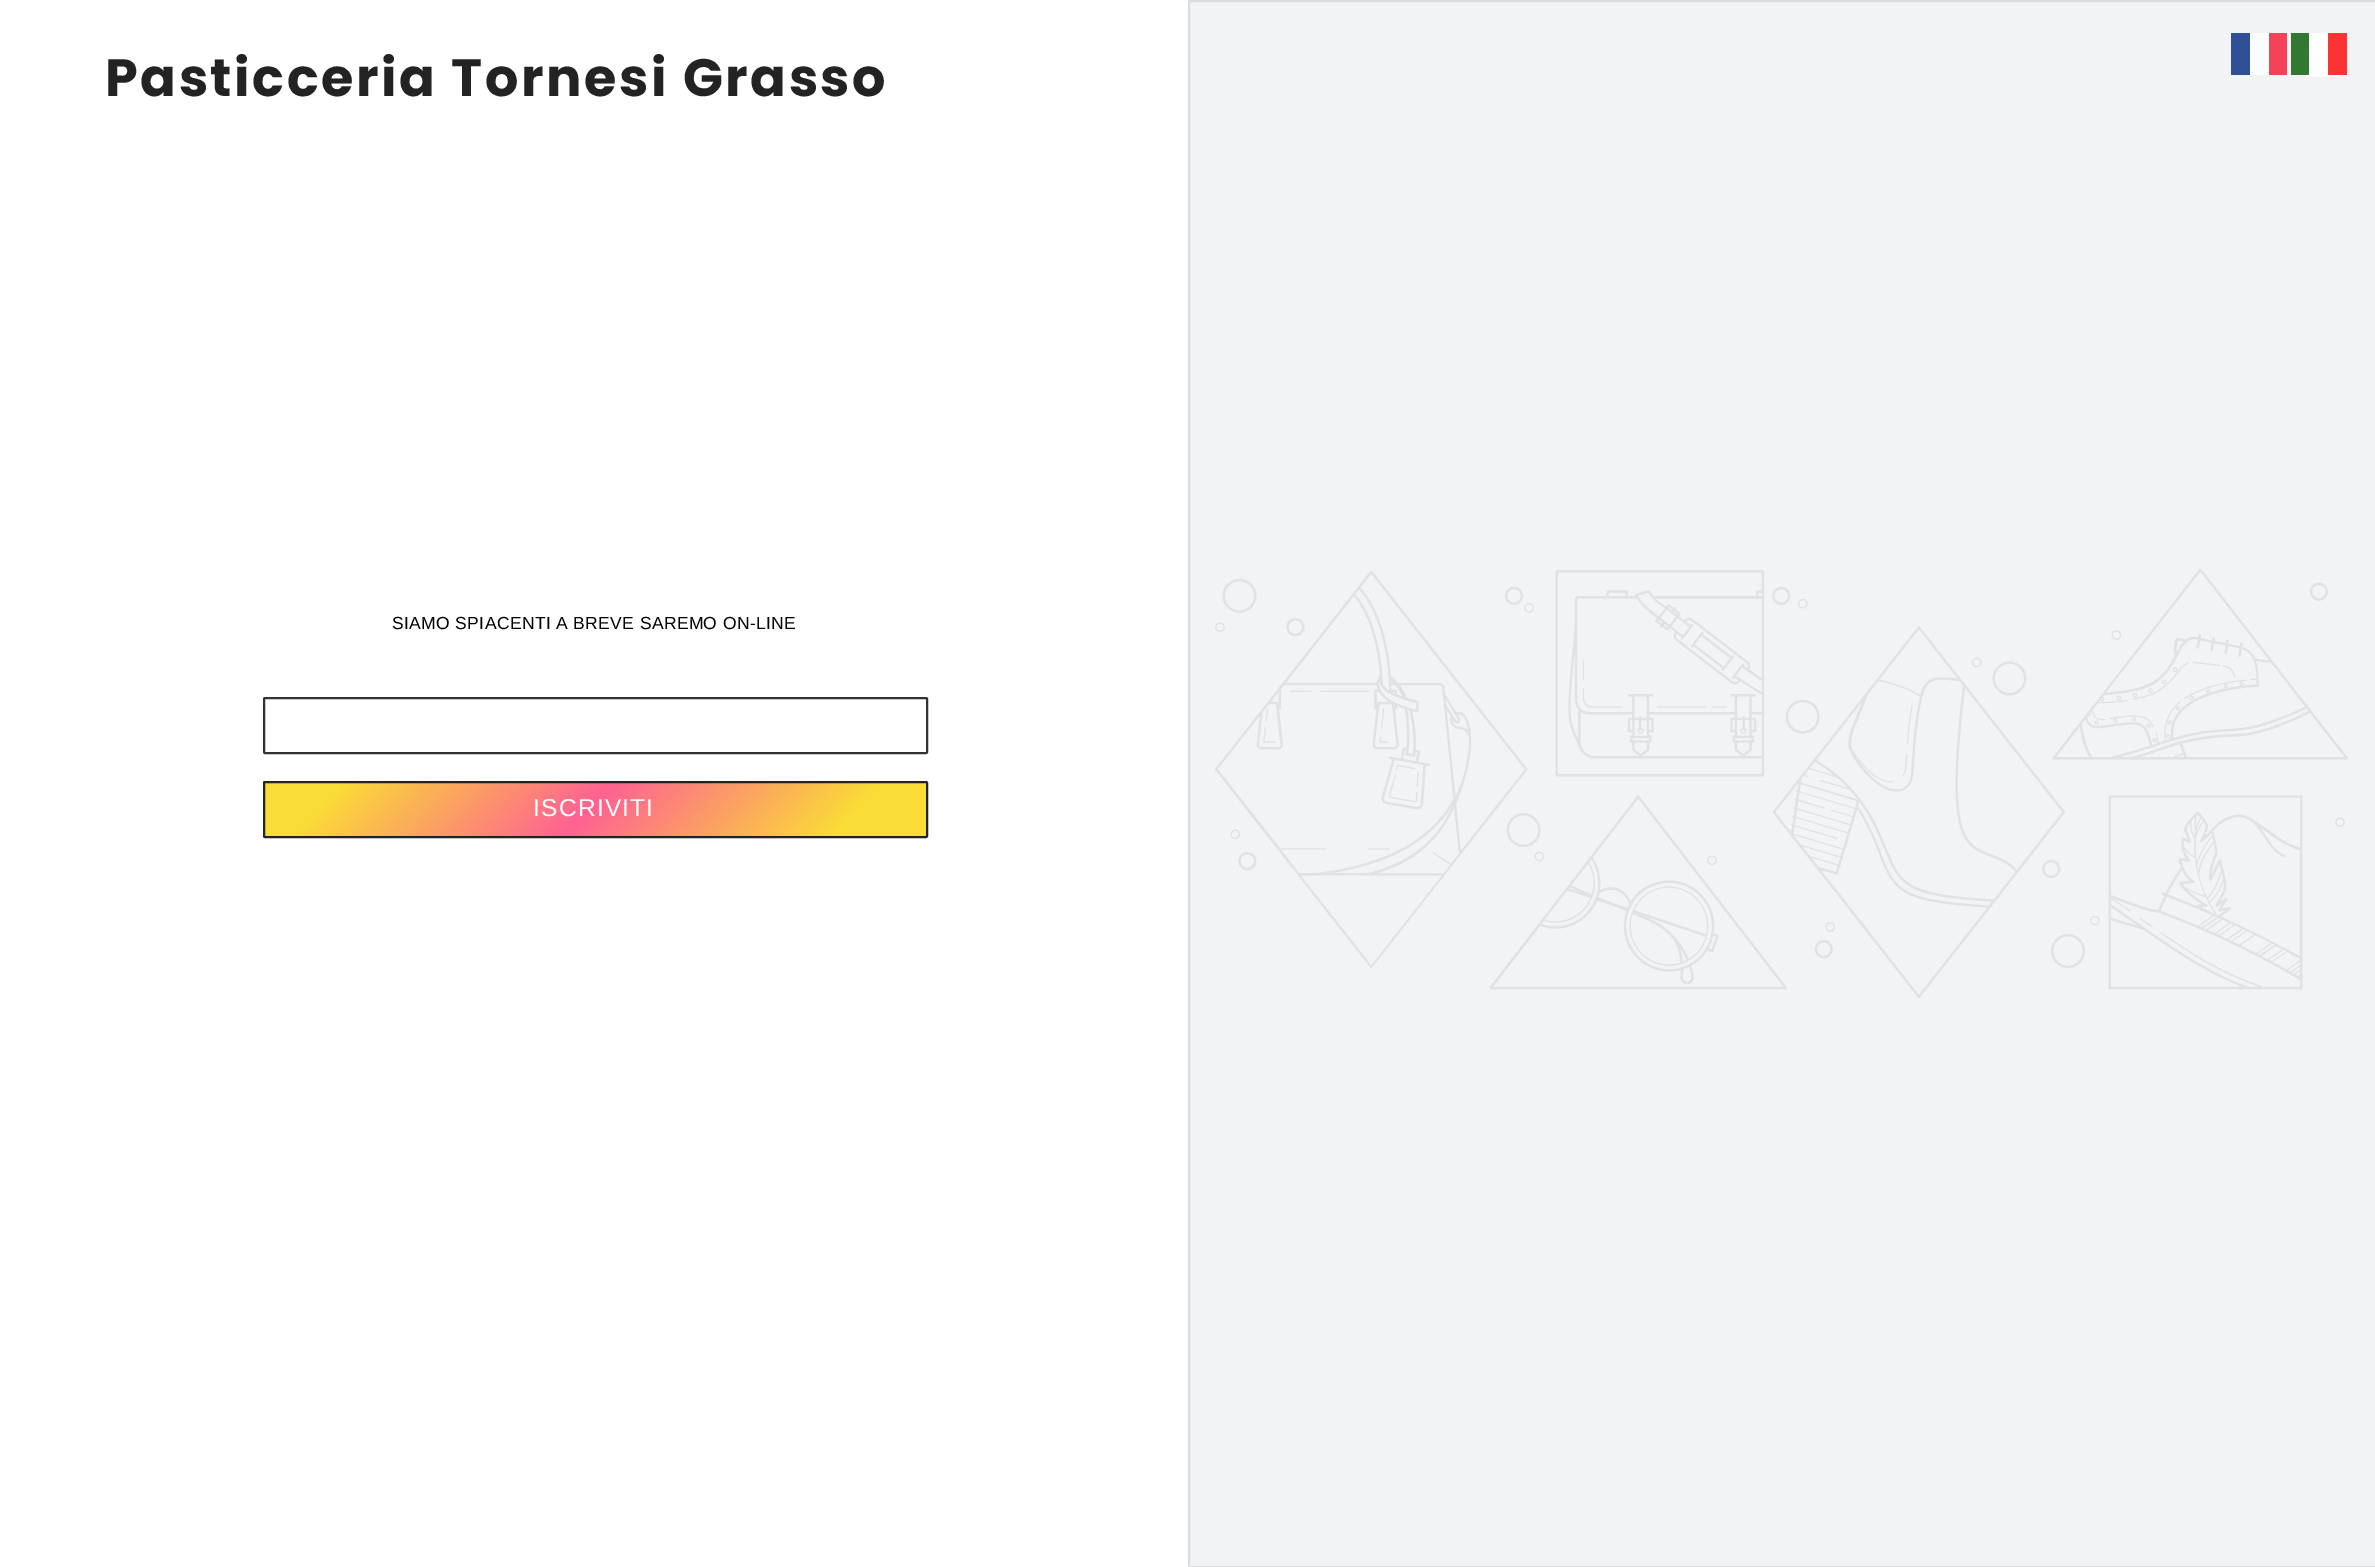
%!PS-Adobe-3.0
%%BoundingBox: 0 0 2375 1567
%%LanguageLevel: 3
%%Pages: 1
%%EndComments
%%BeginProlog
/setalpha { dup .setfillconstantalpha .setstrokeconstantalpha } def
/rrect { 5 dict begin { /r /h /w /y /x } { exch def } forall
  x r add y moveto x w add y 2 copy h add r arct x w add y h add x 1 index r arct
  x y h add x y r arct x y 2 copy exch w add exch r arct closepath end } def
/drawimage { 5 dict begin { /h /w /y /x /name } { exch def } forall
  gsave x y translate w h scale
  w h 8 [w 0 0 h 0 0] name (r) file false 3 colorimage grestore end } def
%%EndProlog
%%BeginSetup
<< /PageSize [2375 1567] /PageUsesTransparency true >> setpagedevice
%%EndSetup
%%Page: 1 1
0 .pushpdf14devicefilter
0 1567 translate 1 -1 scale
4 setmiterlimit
1 setgray
0 0 2375 1567 rectfill
0.196 setgray
2 setlinewidth
264 698 663 55 1 rrect stroke
gsave newpath 263 781 moveto 264 781 lineto 264 782 lineto 263 782 lineto closepath clip newpath
<< /ShadingType 2 /ColorSpace /DeviceRGB /Coords [-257 578 124 933] /Extend [true true] /Function << /FunctionType 3 /Domain [0 1] /Functions [<< /FunctionType 2 /Domain [0 1] /C0 [0.98 0.863 0.212] /C1 [0.98 0.863 0.212] /N 1 >> << /FunctionType 2 /Domain [0 1] /C0 [0.98 0.863 0.212] /C1 [0.996 0.384 0.573] /N 1 >> << /FunctionType 2 /Domain [0 1] /C0 [0.996 0.384 0.573] /C1 [0.98 0.863 0.212] /N 1 >> << /FunctionType 2 /Domain [0 1] /C0 [0.98 0.863 0.212] /C1 [0.98 0.863 0.212] /N 1 >>] /Bounds [0.11 0.49 0.87] /Encode [0 1 0 1 0 1 0 1] >> >> shfill grestore
gsave newpath 265 783 moveto 926 783 lineto 926 836 lineto 265 836 lineto closepath clip newpath
<< /ShadingType 2 /ColorSpace /DeviceRGB /Coords [405 632 785 987] /Extend [true true] /Function << /FunctionType 3 /Domain [0 1] /Functions [<< /FunctionType 2 /Domain [0 1] /C0 [0.98 0.863 0.212] /C1 [0.98 0.863 0.212] /N 1 >> << /FunctionType 2 /Domain [0 1] /C0 [0.98 0.863 0.212] /C1 [0.996 0.384 0.573] /N 1 >> << /FunctionType 2 /Domain [0 1] /C0 [0.996 0.384 0.573] /C1 [0.98 0.863 0.212] /N 1 >> << /FunctionType 2 /Domain [0 1] /C0 [0.98 0.863 0.212] /C1 [0.98 0.863 0.212] /N 1 >>] /Bounds [0.11 0.49 0.87] /Encode [0 1 0 1 0 1 0 1] >> >> shfill grestore
gsave newpath 263 837 moveto 264 837 lineto 264 838 lineto 263 838 lineto closepath clip newpath
<< /ShadingType 2 /ColorSpace /DeviceRGB /Coords [-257 686 124 1041] /Extend [true true] /Function << /FunctionType 3 /Domain [0 1] /Functions [<< /FunctionType 2 /Domain [0 1] /C0 [0.98 0.863 0.212] /C1 [0.98 0.863 0.212] /N 1 >> << /FunctionType 2 /Domain [0 1] /C0 [0.98 0.863 0.212] /C1 [0.996 0.384 0.573] /N 1 >> << /FunctionType 2 /Domain [0 1] /C0 [0.996 0.384 0.573] /C1 [0.98 0.863 0.212] /N 1 >> << /FunctionType 2 /Domain [0 1] /C0 [0.98 0.863 0.212] /C1 [0.98 0.863 0.212] /N 1 >>] /Bounds [0.11 0.49 0.87] /Encode [0 1 0 1 0 1 0 1] >> >> shfill grestore
0.137 setgray
264 782 663 55 1 rrect stroke
0.949 0.953 0.957 setrgbcolor
1190 2 1185 1564 rectfill
0.988 0.992 0.992 setrgbcolor
2291 33 56 42 rectfill
0.855 0.863 0.871 setrgbcolor
1189 1 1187 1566 rectstroke
(images/1.raw) 1215 568 1133 430 drawimage
(images/2.raw) 2305 35 37 42 drawimage
0.188 0.31 0.588 setrgbcolor
2231 33 19 42 rectfill
0.988 0.992 0.992 setrgbcolor
2250 33 19 42 rectfill
0.953 0.267 0.341 setrgbcolor
2269 33 18 42 rectfill
0.8 setalpha
0 0.341 0 setrgbcolor
2291 33 18 42 rectfill
0.988 0 0 setrgbcolor
2328 33 19 42 rectfill
/Poppins-Bold [52.5 0 0 -52.5 0 0] selectfont
1 setalpha
0.137 setgray
105 96 moveto 2.6 0 (Pasticceria Tornesi Grasso) ashow
/LiberationSans-Regular [17.5 0 0 -17.5 0 0] selectfont
0 setgray
392 629 moveto 0.35 0 (SIAMO SPIACENTI A BREVE SAREMO ON-LINE) ashow
/LiberationSans-Regular [24.5 0 0 -24.5 0 0] selectfont
1 setgray
533 816 moveto 1.25 0 (ISCRIVITI) ashow
.poppdf14devicefilter showpage
%%EOF
